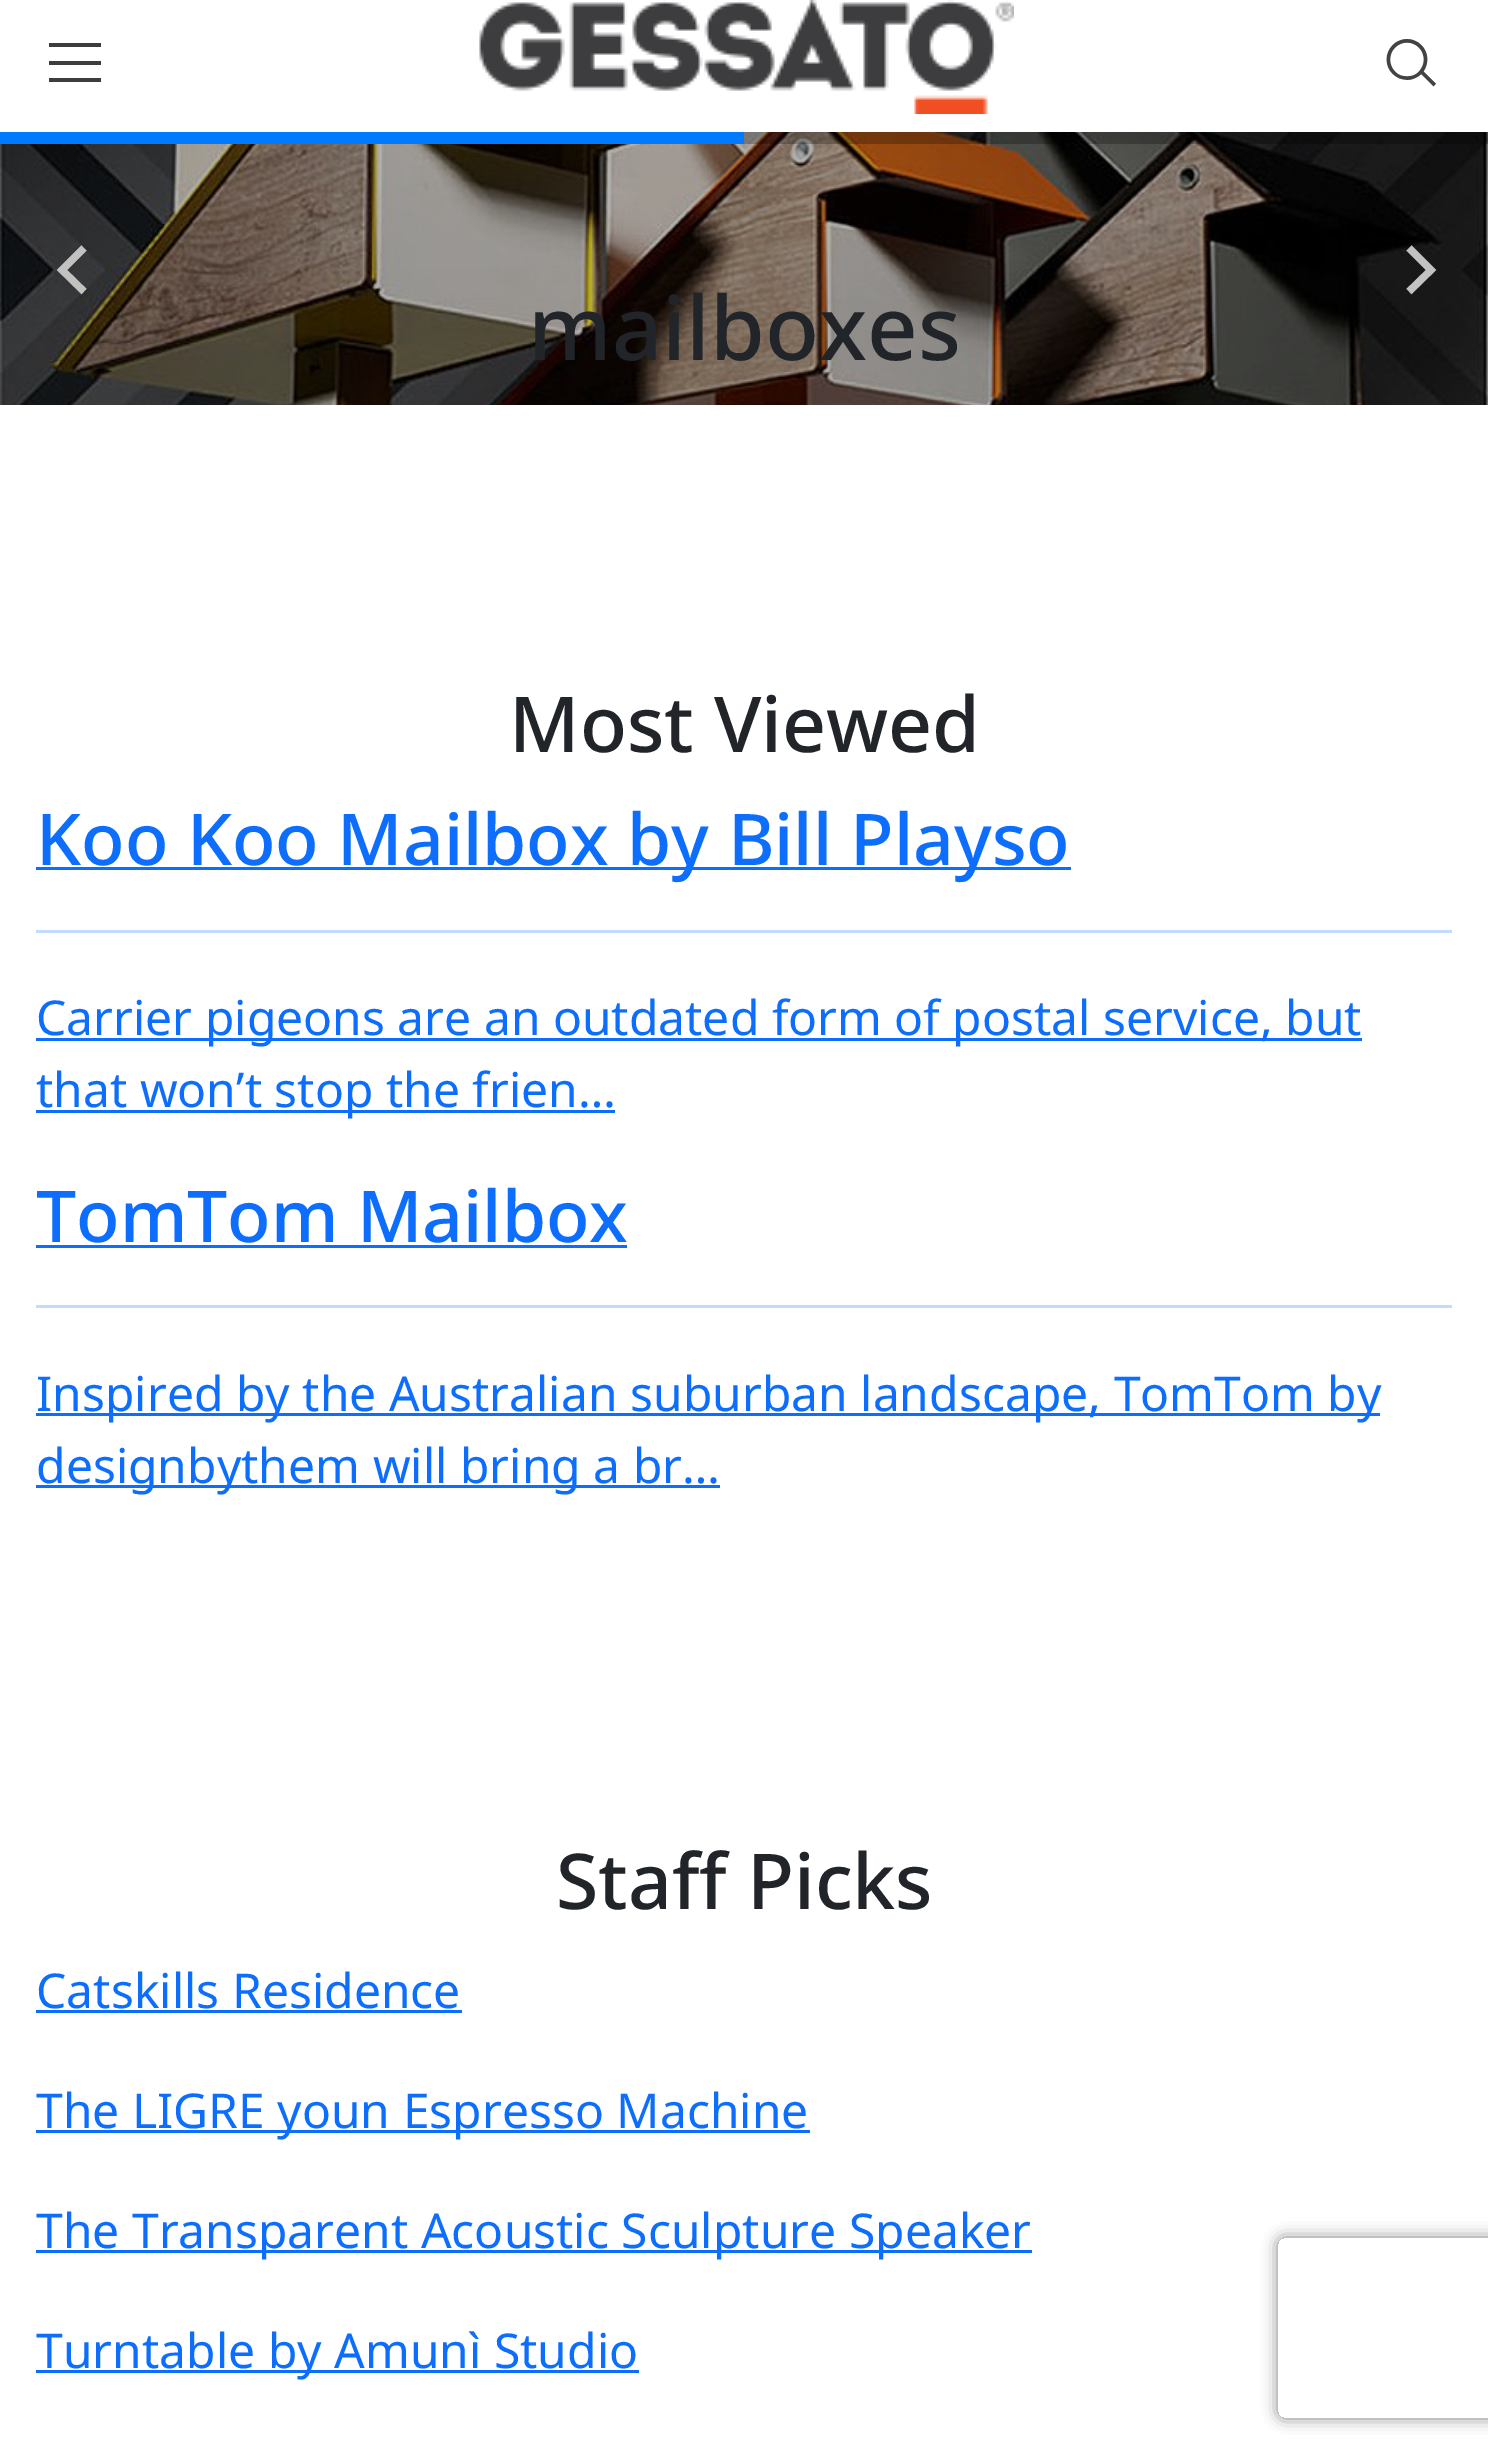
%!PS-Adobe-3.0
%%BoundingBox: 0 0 1488 2460
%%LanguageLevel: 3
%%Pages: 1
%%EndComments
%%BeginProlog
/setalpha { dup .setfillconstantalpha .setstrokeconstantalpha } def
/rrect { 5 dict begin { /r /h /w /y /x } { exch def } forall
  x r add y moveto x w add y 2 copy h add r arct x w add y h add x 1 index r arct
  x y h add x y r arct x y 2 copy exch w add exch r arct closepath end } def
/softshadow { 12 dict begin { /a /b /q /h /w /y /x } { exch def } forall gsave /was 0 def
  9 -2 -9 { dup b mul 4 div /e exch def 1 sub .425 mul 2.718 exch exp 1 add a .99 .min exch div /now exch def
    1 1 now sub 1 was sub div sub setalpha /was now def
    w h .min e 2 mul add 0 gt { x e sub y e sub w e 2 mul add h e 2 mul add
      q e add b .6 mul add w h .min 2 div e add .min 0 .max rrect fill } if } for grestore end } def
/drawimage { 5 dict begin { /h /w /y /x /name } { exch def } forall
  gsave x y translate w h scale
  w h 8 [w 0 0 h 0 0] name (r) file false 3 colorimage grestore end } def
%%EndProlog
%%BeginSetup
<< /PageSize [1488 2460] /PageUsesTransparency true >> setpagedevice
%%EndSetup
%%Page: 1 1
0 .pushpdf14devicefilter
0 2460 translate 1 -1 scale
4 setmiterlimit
1 setgray
0 0 1488 2460 rectfill
0.239 0.235 0.247 setrgbcolor
newpath 101 47 moveto 49 47 lineto 49 43 lineto 101 43 lineto closepath 101 65 moveto 49 65 lineto 49 61 lineto 101 61 lineto closepath 49 82 moveto 101 82 lineto 101 78 lineto 49 78 lineto closepath eofill
(images/1.raw) 479 0 535 114 drawimage
(images/2.raw) 1386 39 50 48 drawimage
(images/3.raw) 0 132 1488 273 drawimage
0.25 setalpha
0 setgray
744 132 744 12 rectfill
1 setalpha
0 0.478 1 setrgbcolor
0 132 744 12 rectfill
0.761 0.765 0.753 setrgbcolor
7.2 setlinewidth
newpath 84 248 moveto 62 270 lineto 84 291.5 lineto stroke
newpath 1409 248 moveto 1431 270 lineto 1409 291.5 lineto stroke
0.051 0.431 0.992 setrgbcolor
36 867 1035 3 rectfill
0.765 0.859 1 setrgbcolor
36 930 1416 3 rectfill
0.051 0.431 0.992 setrgbcolor
36 1038 1326 3 rectfill
36 1110 579 3 rectfill
36 1245 591 3 rectfill
0.765 0.859 1 setrgbcolor
36 1305 1416 3 rectfill
0.051 0.431 0.992 setrgbcolor
36 1413 1344 3 rectfill
36 1485 684 3 rectfill
36 2010 426 3 rectfill
36 2130 774 3 rectfill
36 2250 996 3 rectfill
36 2370 603 3 rectfill
gsave
newpath 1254 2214 moveto 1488 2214 lineto 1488 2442 lineto 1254 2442 lineto closepath 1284 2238 moveto 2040 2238 lineto 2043.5 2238 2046 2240.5 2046 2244 curveto 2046 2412 lineto 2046 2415.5 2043.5 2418 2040 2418 curveto 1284 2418 lineto 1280.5 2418 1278 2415.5 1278 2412 curveto 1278 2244 lineto 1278 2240.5 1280.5 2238 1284 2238 curveto closepath eoclip newpath
0.502 setgray
1278 2238 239 180 6 7.5 1 softshadow
grestore
/NotoSans-Medium [88.5 0 0 -88.5 0 0] selectfont
0.129 0.145 0.161 setrgbcolor
528 360 moveto (mailboxes) show
/NotoSans-Medium [77 0 0 -77 0 0] selectfont
509 752 moveto (Most Viewed) show
/NotoSans-Medium [71.3 0 0 -71.3 0 0] selectfont
0.051 0.431 0.992 setrgbcolor
36 865 moveto (Koo Koo Mailbox by Bill Playso) show
/NotoSans-Regular [48 0 0 -48 0 0] selectfont
36 1035 moveto (Carrier pigeons are an outdated form of postal service, but) show
36 1107 moveto (that won’t stop the frien…) show
/NotoSans-Medium [71.3 0 0 -71.3 0 0] selectfont
36 1242 moveto (TomTom Mailbox) show
/NotoSans-Regular [48 0 0 -48 0 0] selectfont
36 1411 moveto (Inspired by the Australian suburban landscape, TomTom by) show
36 1483 moveto (designbythem will bring a br…) show
/NotoSans-Medium [77 0 0 -77 0 0] selectfont
0.129 0.145 0.161 setrgbcolor
556 1909 moveto (Staff Picks) show
/NotoSans-Regular [48 0 0 -48 0 0] selectfont
0.051 0.431 0.992 setrgbcolor
36 2008 moveto (Catskills Residence) show
36 2128 moveto (The LIGRE youn Espresso Machine) show
36 2248 moveto (The Transparent Acoustic Sculpture Speaker) show
36 2368 moveto (Turntable by Amunì Studio) show
.poppdf14devicefilter showpage
%%EOF
